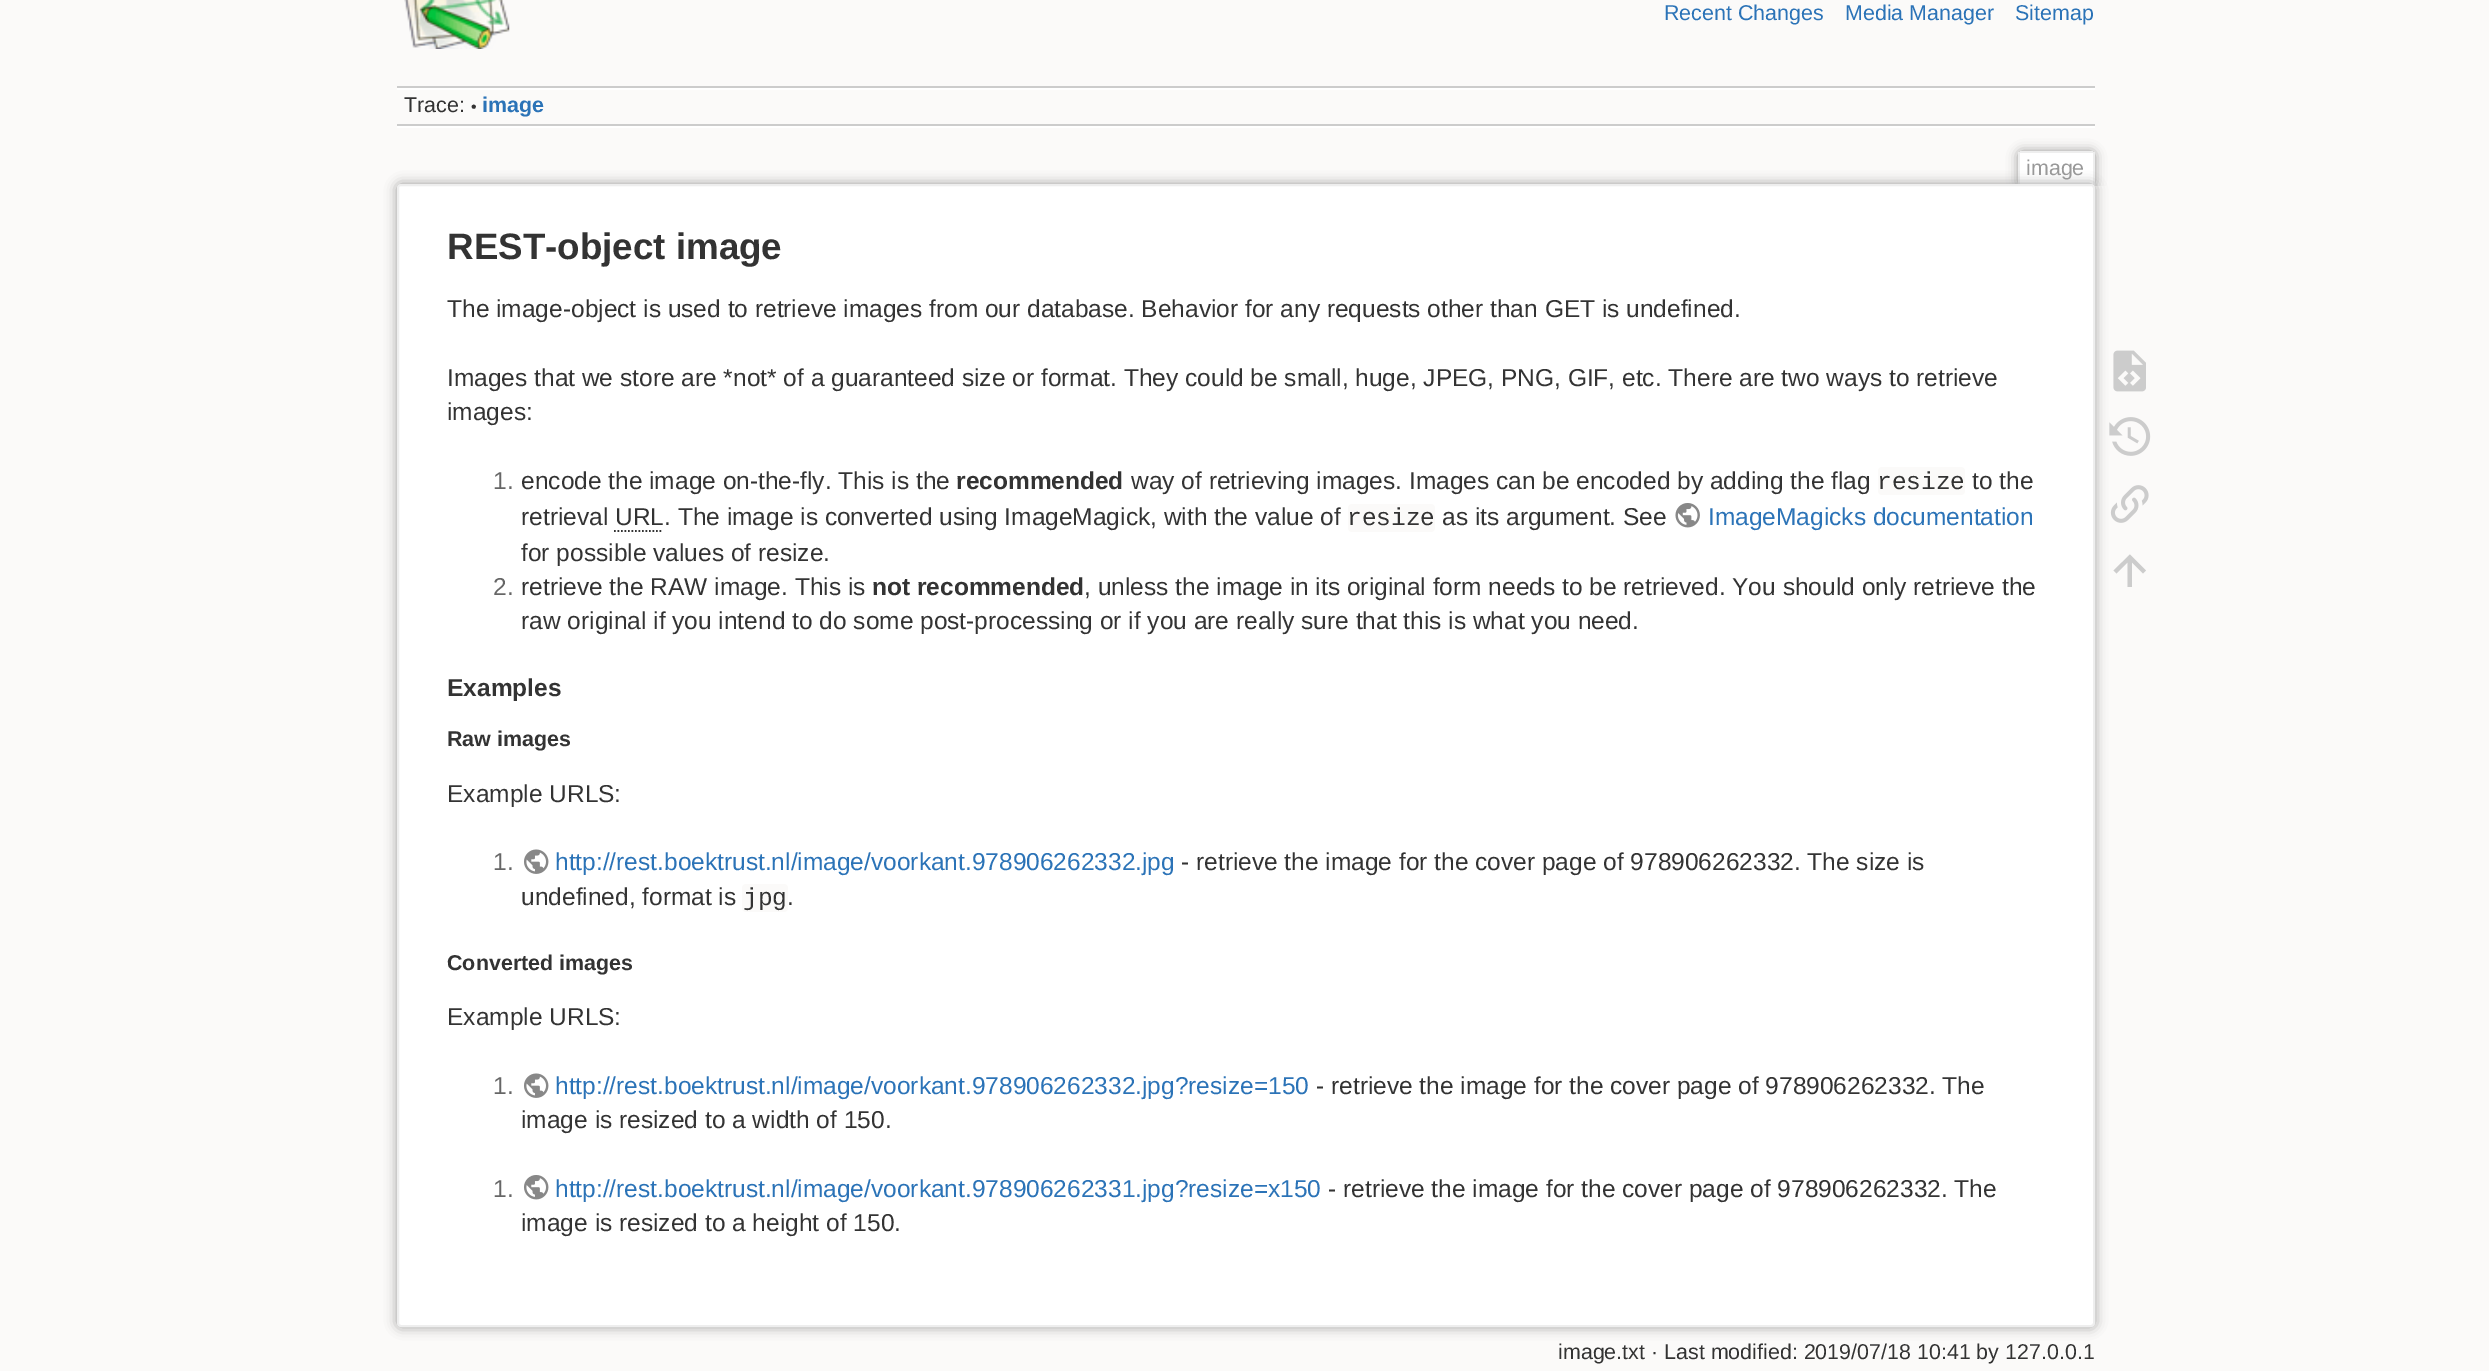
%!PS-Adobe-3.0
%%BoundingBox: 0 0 2489 1371
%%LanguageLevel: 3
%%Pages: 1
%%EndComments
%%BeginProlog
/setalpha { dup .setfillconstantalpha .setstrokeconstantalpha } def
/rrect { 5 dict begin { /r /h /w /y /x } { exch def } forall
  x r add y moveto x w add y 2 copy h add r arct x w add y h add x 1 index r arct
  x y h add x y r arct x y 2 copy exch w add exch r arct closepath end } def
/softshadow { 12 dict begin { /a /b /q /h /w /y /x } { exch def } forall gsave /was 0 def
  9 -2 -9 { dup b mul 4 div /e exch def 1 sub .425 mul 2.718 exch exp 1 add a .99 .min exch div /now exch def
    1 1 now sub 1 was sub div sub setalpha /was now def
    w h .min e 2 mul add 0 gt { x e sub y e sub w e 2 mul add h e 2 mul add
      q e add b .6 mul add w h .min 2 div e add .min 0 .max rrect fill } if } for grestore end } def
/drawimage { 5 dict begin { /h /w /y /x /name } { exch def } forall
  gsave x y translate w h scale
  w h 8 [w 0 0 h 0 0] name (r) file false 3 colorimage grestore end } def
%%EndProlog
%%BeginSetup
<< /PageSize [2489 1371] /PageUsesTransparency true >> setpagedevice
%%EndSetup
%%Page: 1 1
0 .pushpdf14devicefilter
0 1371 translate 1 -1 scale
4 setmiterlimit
0.984 0.98 0.976 setrgbcolor
0 0 2489 1371 rectfill
(images/1.raw) 404 0 106 49 drawimage
0.8 setgray
397 86 1698 2 rectfill
1 setgray
397 126 1698 2 rectfill
397 88 1698 2 rectfill
0.8 setgray
397 124 1698 2 rectfill
gsave
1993 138 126 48 rectclip
0.6 setgray
2018 151 77 35 4 5.5 1 softshadow
grestore
1 setgray
newpath 2022 152 moveto 2091 152 lineto 2092 152 2093 153 2093 154 curveto 2093 186 lineto 2020 186 lineto 2020 154 lineto 2020 153 2021 152 2022 152 curveto closepath fill
0.933 setgray
2020 151 73 2 rectfill
2093 152 2 34 rectfill
2018 152 2 34 rectfill
0.6 setgray
397 184 1698 1143 4 6 1 softshadow
1 setgray
398 185 1696 1141 3 rrect gsave fill grestore
0.933 setgray
2 setlinewidth
stroke
0.984 0.98 0.976 setrgbcolor
1878 467 87 28 4 rrect fill
1348 504 87 28 4 rrect fill
(images/2.raw) 1675 503 25 25 drawimage
0.2 setgray
1.8 setlinewidth
[1.75 1.75] 0 setdash
newpath 614 531 moveto 663 531 lineto stroke
(images/3.raw) 524 849 25 25 drawimage
0.984 0.98 0.976 setrgbcolor
742 884 46 28 4 rrect fill
(images/3.raw) 524 1073 25 25 drawimage
(images/4.raw) 524 1175 25 25 drawimage
(images/5.raw) 2113 350 33 42 drawimage
(images/6.raw) 2109 417 42 39 drawimage
(images/7.raw) 2110 485 39 38 drawimage
0.8 setgray
newpath 2132 587 moveto 2127.5 587 lineto 2127.5 562.5 lineto 2116.5 573.5 lineto 2113.5 570.5 lineto 2130 554.5 lineto 2146 570.5 lineto 2143 573.5 lineto 2132 562.5 lineto closepath fill
/LiberationSans-Regular [21.45 0 0 -21.45 0 0] selectfont
0.169 0.451 0.718 setrgbcolor
1664 20 moveto (Recent Changes) show
1845 20 moveto (Media Manager) show
2015 20 moveto (Sitemap) show
0.2 setgray
404 112 moveto (Trace:) show
/LiberationSans-Regular [16 0 0 -16 0 0] selectfont
471 112 moveto (•) show
/LiberationSans-Bold [21.45 0 0 -21.45 0 0] selectfont
0.169 0.451 0.718 setrgbcolor
482 112 moveto (image) show
/LiberationSans-Regular [21.45 0 0 -21.45 0 0] selectfont
0.6 setgray
2026 175 moveto (image) show
/LiberationSans-Bold [36.75 0 0 -36.75 0 0] selectfont
0.2 setgray
447 259 moveto (REST-object image) show
/LiberationSans-Regular [24.5 0 0 -24.5 0 0] selectfont
447 317 moveto (The image-object is used to retrieve images from our database. Behavior for any requests other than GET is undefined.) show
447 386 moveto (Images that we store are *not* of a guaranteed size or format. They could be small, huge, JPEG, PNG, GIF, etc. There are two ways to retrieve) show
447 420 moveto (images:) show
0.4 setgray
493 489 moveto (1.) show
0.2 setgray
521 489 moveto (encode the image on-the-fly. This is the) show
/LiberationSans-Bold [24.5 0 0 -24.5 0 0] selectfont
956 489 moveto (recommended) show
/LiberationSans-Regular [24.5 0 0 -24.5 0 0] selectfont
1131 489 moveto (way of retrieving images. Images can be encoded by adding the flag) show
/LiberationMono-Regular [24.5 0 0 -24.5 0 0] selectfont
1877 489 moveto (resize) show
/LiberationSans-Regular [24.5 0 0 -24.5 0 0] selectfont
1972 489 moveto (to the) show
521 525 moveto (retrieval URL. The image is converted using ImageMagick, with the value of) show
/LiberationMono-Regular [24.5 0 0 -24.5 0 0] selectfont
1347 525 moveto (resize) show
/LiberationSans-Regular [24.5 0 0 -24.5 0 0] selectfont
1442 525 moveto (as its argument. See) show
0.169 0.451 0.718 setrgbcolor
1708 525 moveto (ImageMagicks documentation) show
0.2 setgray
521 561 moveto (for possible values of resize.) show
0.4 setgray
493 595 moveto (2.) show
0.2 setgray
521 595 moveto (retrieve the RAW image. This is) show
/LiberationSans-Bold [24.5 0 0 -24.5 0 0] selectfont
872 595 moveto (not recommended) show
/LiberationSans-Regular [24.5 0 0 -24.5 0 0] selectfont
1084 595 moveto (, unless the image in its original form needs to be retrieved. You should only retrieve the) show
521 629 moveto (raw original if you intend to do some post-processing or if you are really sure that this is what you need.) show
/LiberationSans-Bold [24.5 0 0 -24.5 0 0] selectfont
447 696 moveto (Examples) show
/LiberationSans-Bold [21.45 0 0 -21.45 0 0] selectfont
447 746 moveto (Raw images) show
/LiberationSans-Regular [24.5 0 0 -24.5 0 0] selectfont
447 802 moveto (Example URLS:) show
0.4 setgray
493 870 moveto (1.) show
0.169 0.451 0.718 setrgbcolor
555 870 moveto (http://rest.boektrust.nl/image/voorkant.978906262332.jpg) show
0.2 setgray
1181 870 moveto (- retrieve the image for the cover page of 978906262332. The size is) show
521 905 moveto (undefined, format is) show
/LiberationMono-Regular [24.5 0 0 -24.5 0 0] selectfont
743 905 moveto (jpg) show
/LiberationSans-Regular [24.5 0 0 -24.5 0 0] selectfont
787 905 moveto (.) show
/LiberationSans-Bold [21.45 0 0 -21.45 0 0] selectfont
447 970 moveto (Converted images) show
/LiberationSans-Regular [24.5 0 0 -24.5 0 0] selectfont
447 1025 moveto (Example URLS:) show
0.4 setgray
493 1094 moveto (1.) show
0.169 0.451 0.718 setrgbcolor
555 1094 moveto (http://rest.boektrust.nl/image/voorkant.978906262332.jpg?resize=150) show
0.2 setgray
1316 1094 moveto (- retrieve the image for the cover page of 978906262332. The) show
521 1128 moveto (image is resized to a width of 150.) show
0.4 setgray
493 1197 moveto (1.) show
0.169 0.451 0.718 setrgbcolor
555 1197 moveto (http://rest.boektrust.nl/image/voorkant.978906262331.jpg?resize=x150) show
0.2 setgray
1328 1197 moveto (- retrieve the image for the cover page of 978906262332. The) show
521 1231 moveto (image is resized to a height of 150.) show
/LiberationSans-Regular [21.45 0 0 -21.45 0 0] selectfont
1558 1359 moveto (image.txt · Last modified: 2019/07/18 10:41 by 127.0.0.1) show
.poppdf14devicefilter showpage
%%EOF
